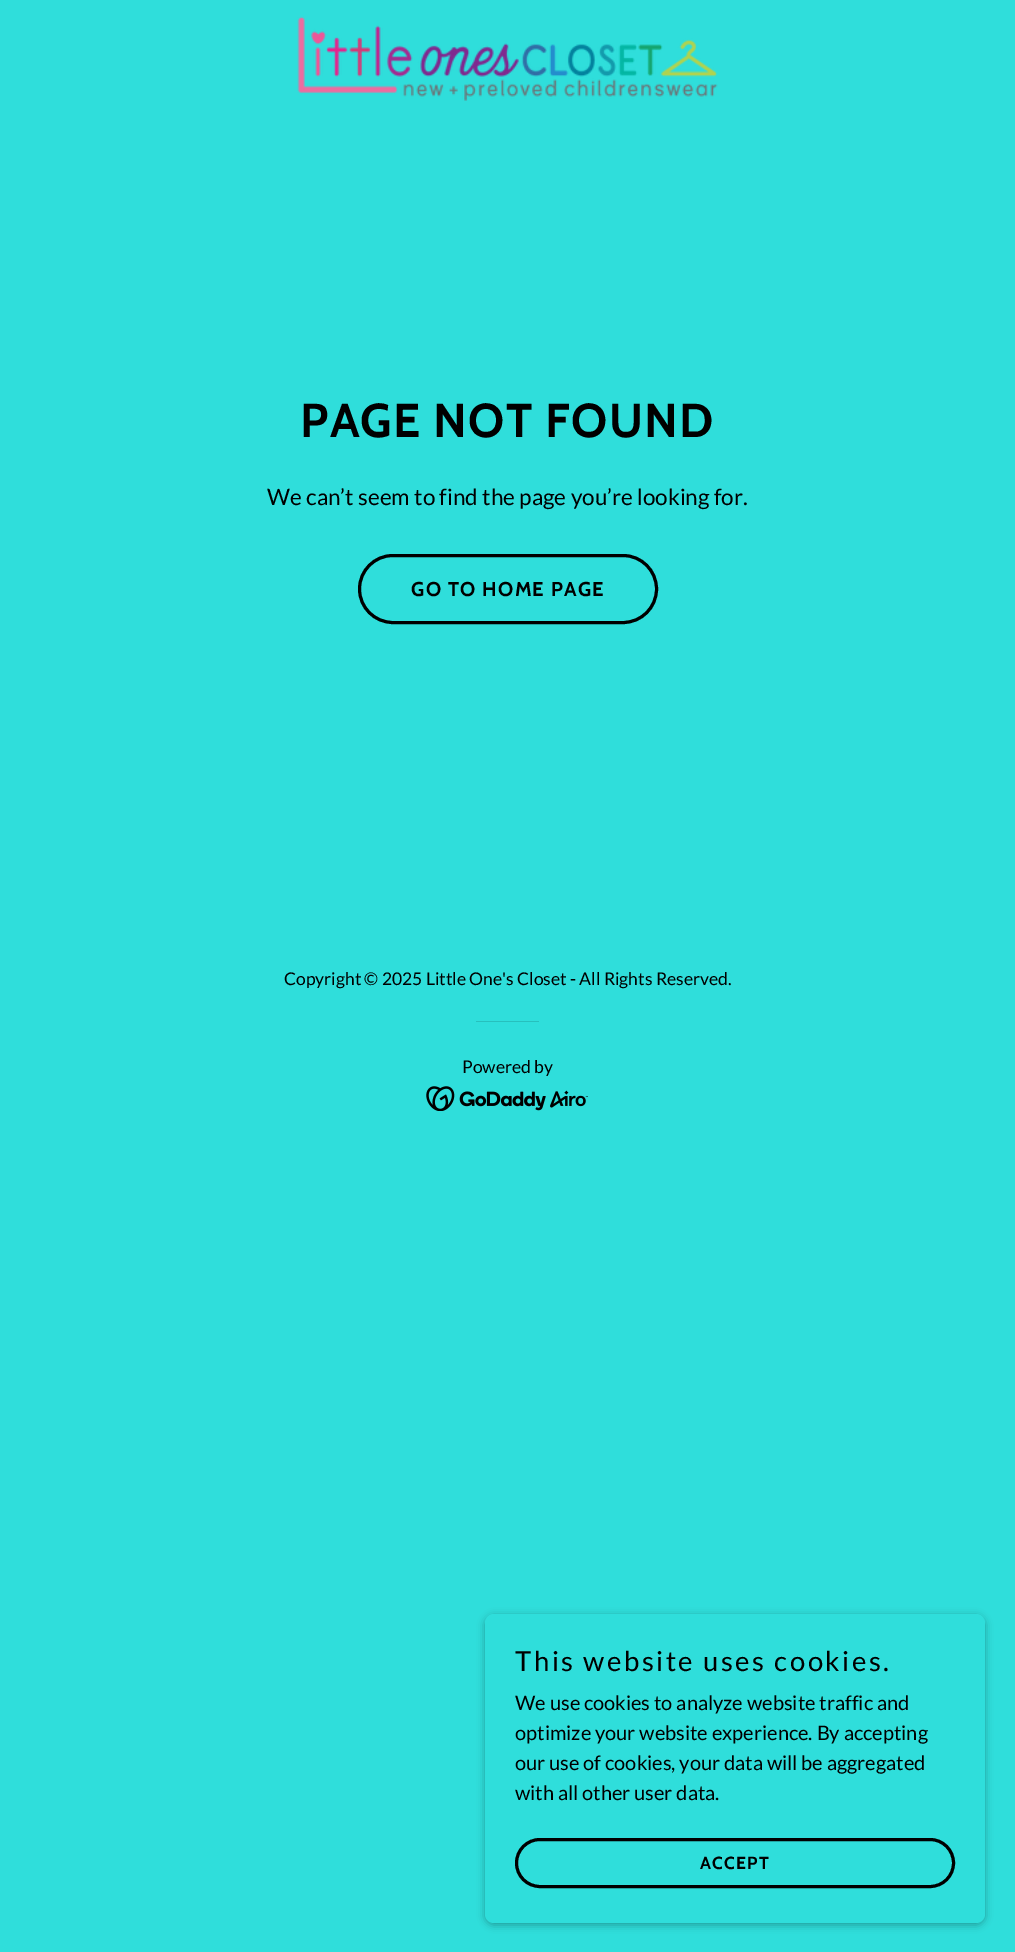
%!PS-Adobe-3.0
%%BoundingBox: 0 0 1015 1952
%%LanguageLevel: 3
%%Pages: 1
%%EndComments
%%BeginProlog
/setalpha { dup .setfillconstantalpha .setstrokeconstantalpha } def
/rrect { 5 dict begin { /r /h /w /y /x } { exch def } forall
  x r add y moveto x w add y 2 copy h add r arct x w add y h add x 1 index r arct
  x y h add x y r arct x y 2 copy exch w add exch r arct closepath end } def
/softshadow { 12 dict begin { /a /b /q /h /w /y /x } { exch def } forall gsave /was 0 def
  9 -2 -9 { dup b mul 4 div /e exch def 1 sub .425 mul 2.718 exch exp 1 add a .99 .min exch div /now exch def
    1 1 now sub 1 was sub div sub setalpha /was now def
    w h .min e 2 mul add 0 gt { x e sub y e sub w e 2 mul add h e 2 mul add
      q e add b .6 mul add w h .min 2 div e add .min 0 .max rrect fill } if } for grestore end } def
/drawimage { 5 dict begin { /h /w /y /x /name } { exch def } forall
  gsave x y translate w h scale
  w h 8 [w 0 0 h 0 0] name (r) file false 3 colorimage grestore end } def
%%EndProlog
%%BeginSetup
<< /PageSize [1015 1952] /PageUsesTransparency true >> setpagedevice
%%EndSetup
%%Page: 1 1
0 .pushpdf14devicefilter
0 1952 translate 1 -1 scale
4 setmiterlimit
0.184 0.871 0.859 setrgbcolor
0 0 1015 1952 rectfill
(images/1.raw) 297 16 421 85 drawimage
0 setgray
3 setlinewidth
359.5 555.5 297 67 33.5 rrect stroke
0.153 0.753 0.741 setrgbcolor
476 1021 63 1 rectfill
(images/2.raw) 426 1086 162 25 drawimage
0 setgray
485 1616 500 309 9 4 0.3 softshadow
0.184 0.871 0.859 setrgbcolor
485 1614 500 309 9 rrect fill
0 setgray
516.5 1839.5 437 47 23.5 rrect stroke
/Cabin-Bold [47.5 0 0 -47.5 0 0] selectfont
300 437 moveto 1.25 0 (PAGE NOT FOUND) ashow
/Lato-Regular [22.5 0 0 -22.5 0 0] selectfont
267 505 moveto (We can’t seem to find the page you’re looking for.) show
/Cabin-Bold [20 0 0 -20 0 0] selectfont
411 596 moveto 1.25 0 (GO TO HOME PAGE) ashow
/Lato-Regular [17.5 0 0 -17.5 0 0] selectfont
284 985 moveto (Copyright © 2025 Little One's Closet - All Rights Reserved.) show
462 1073 moveto (Powered by) show
/Lato-Regular [27.5 0 0 -27.5 0 0] selectfont
515 1671 moveto 2.5 0 (This website uses cookies.) ashow
/Lato-Regular [20 0 0 -20 0 0] selectfont
515 1710 moveto (We use cookies to analyze website traffic and) show
515 1740 moveto (optimize your website experience. By accepting) show
515 1770 moveto (our use of cookies, your data will be aggregated) show
515 1800 moveto (with all other user data.) show
/Cabin-Bold [17.5 0 0 -17.5 0 0] selectfont
700 1869 moveto 1.25 0 (ACCEPT) ashow
.poppdf14devicefilter showpage
%%EOF
